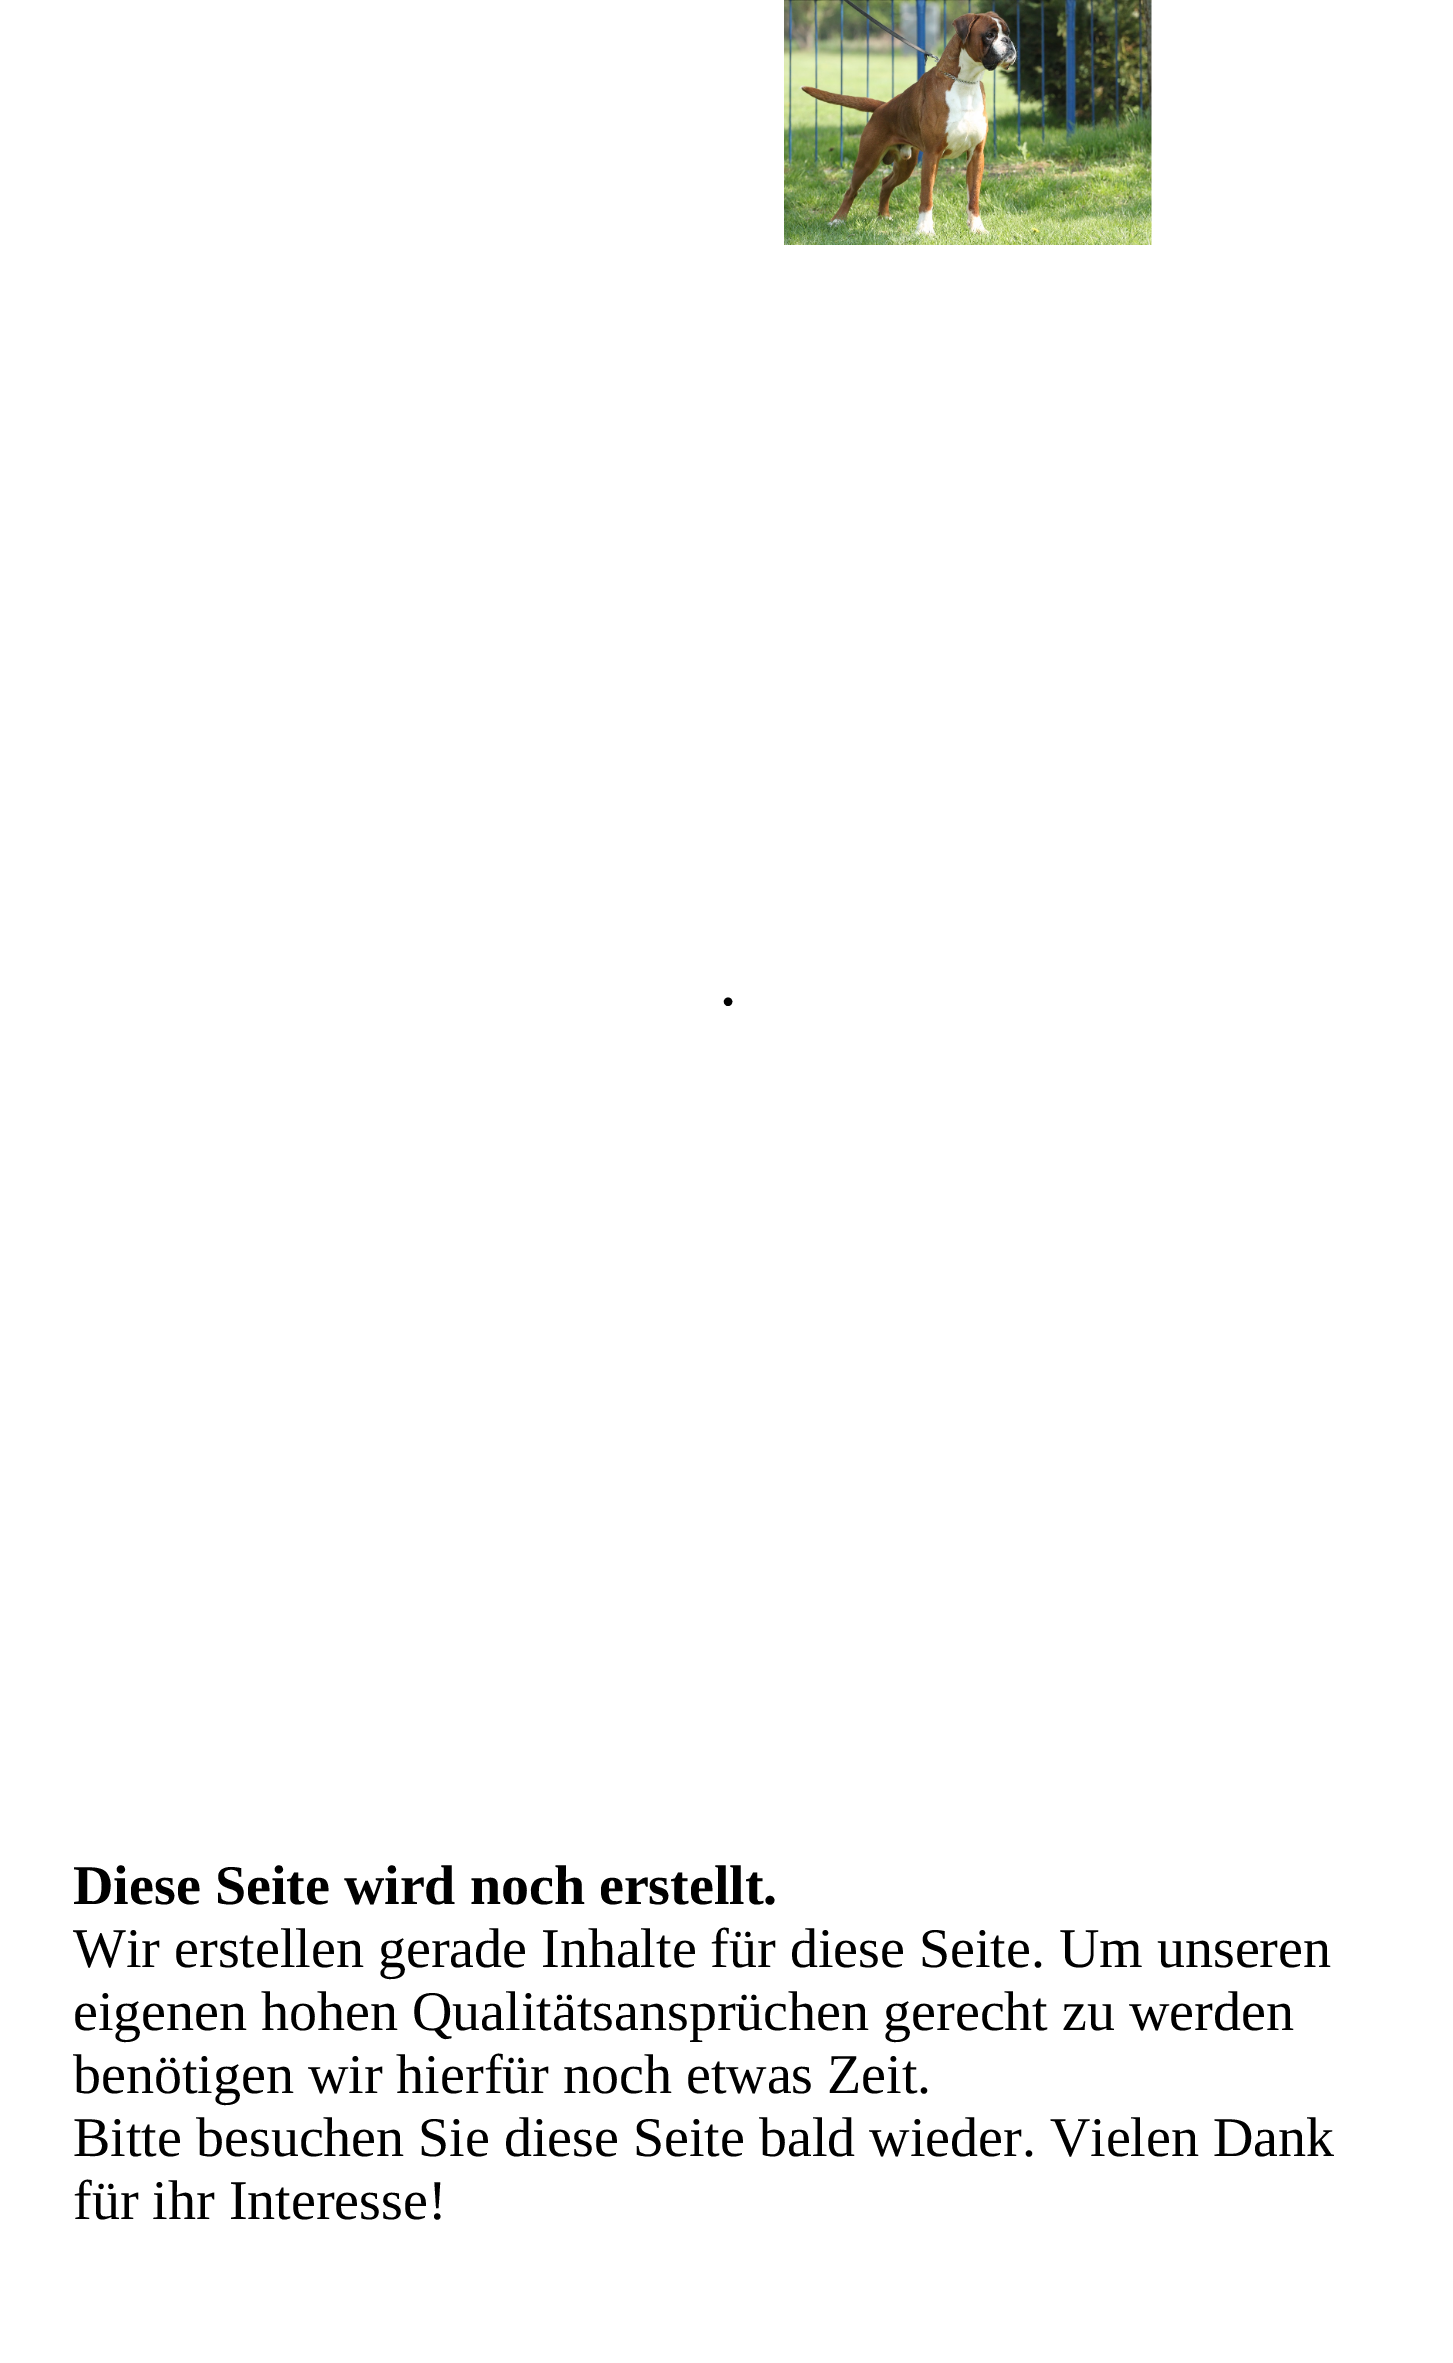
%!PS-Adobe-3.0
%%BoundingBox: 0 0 1453 2363
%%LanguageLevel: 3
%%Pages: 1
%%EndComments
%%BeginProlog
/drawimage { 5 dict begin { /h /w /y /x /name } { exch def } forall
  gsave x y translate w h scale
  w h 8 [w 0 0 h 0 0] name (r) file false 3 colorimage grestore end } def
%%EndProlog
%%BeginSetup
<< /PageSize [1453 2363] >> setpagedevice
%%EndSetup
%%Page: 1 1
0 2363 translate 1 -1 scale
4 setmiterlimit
1 setgray
0 0 1453 2363 rectfill
(images/1.raw) 784 0 368 245 drawimage
/LiberationSerif-Regular [73 0 0 -73 0 0] selectfont
0 setgray
719 1005 moveto (.) show
/LiberationSerif-Bold [56 0 0 -56 0 0] selectfont
73 1904 moveto (Diese Seite wird noch erstellt.) show
/LiberationSerif-Regular [56 0 0 -56 0 0] selectfont
73 1967 moveto (Wir erstellen gerade Inhalte für diese Seite. Um unseren) show
73 2030 moveto (eigenen hohen Qualitätsansprüchen gerecht zu werden) show
73 2093 moveto (benötigen wir hierfür noch etwas Zeit.) show
73 2156 moveto (Bitte besuchen Sie diese Seite bald wieder. Vielen Dank) show
73 2219 moveto (für ihr Interesse!) show
showpage
%%EOF
